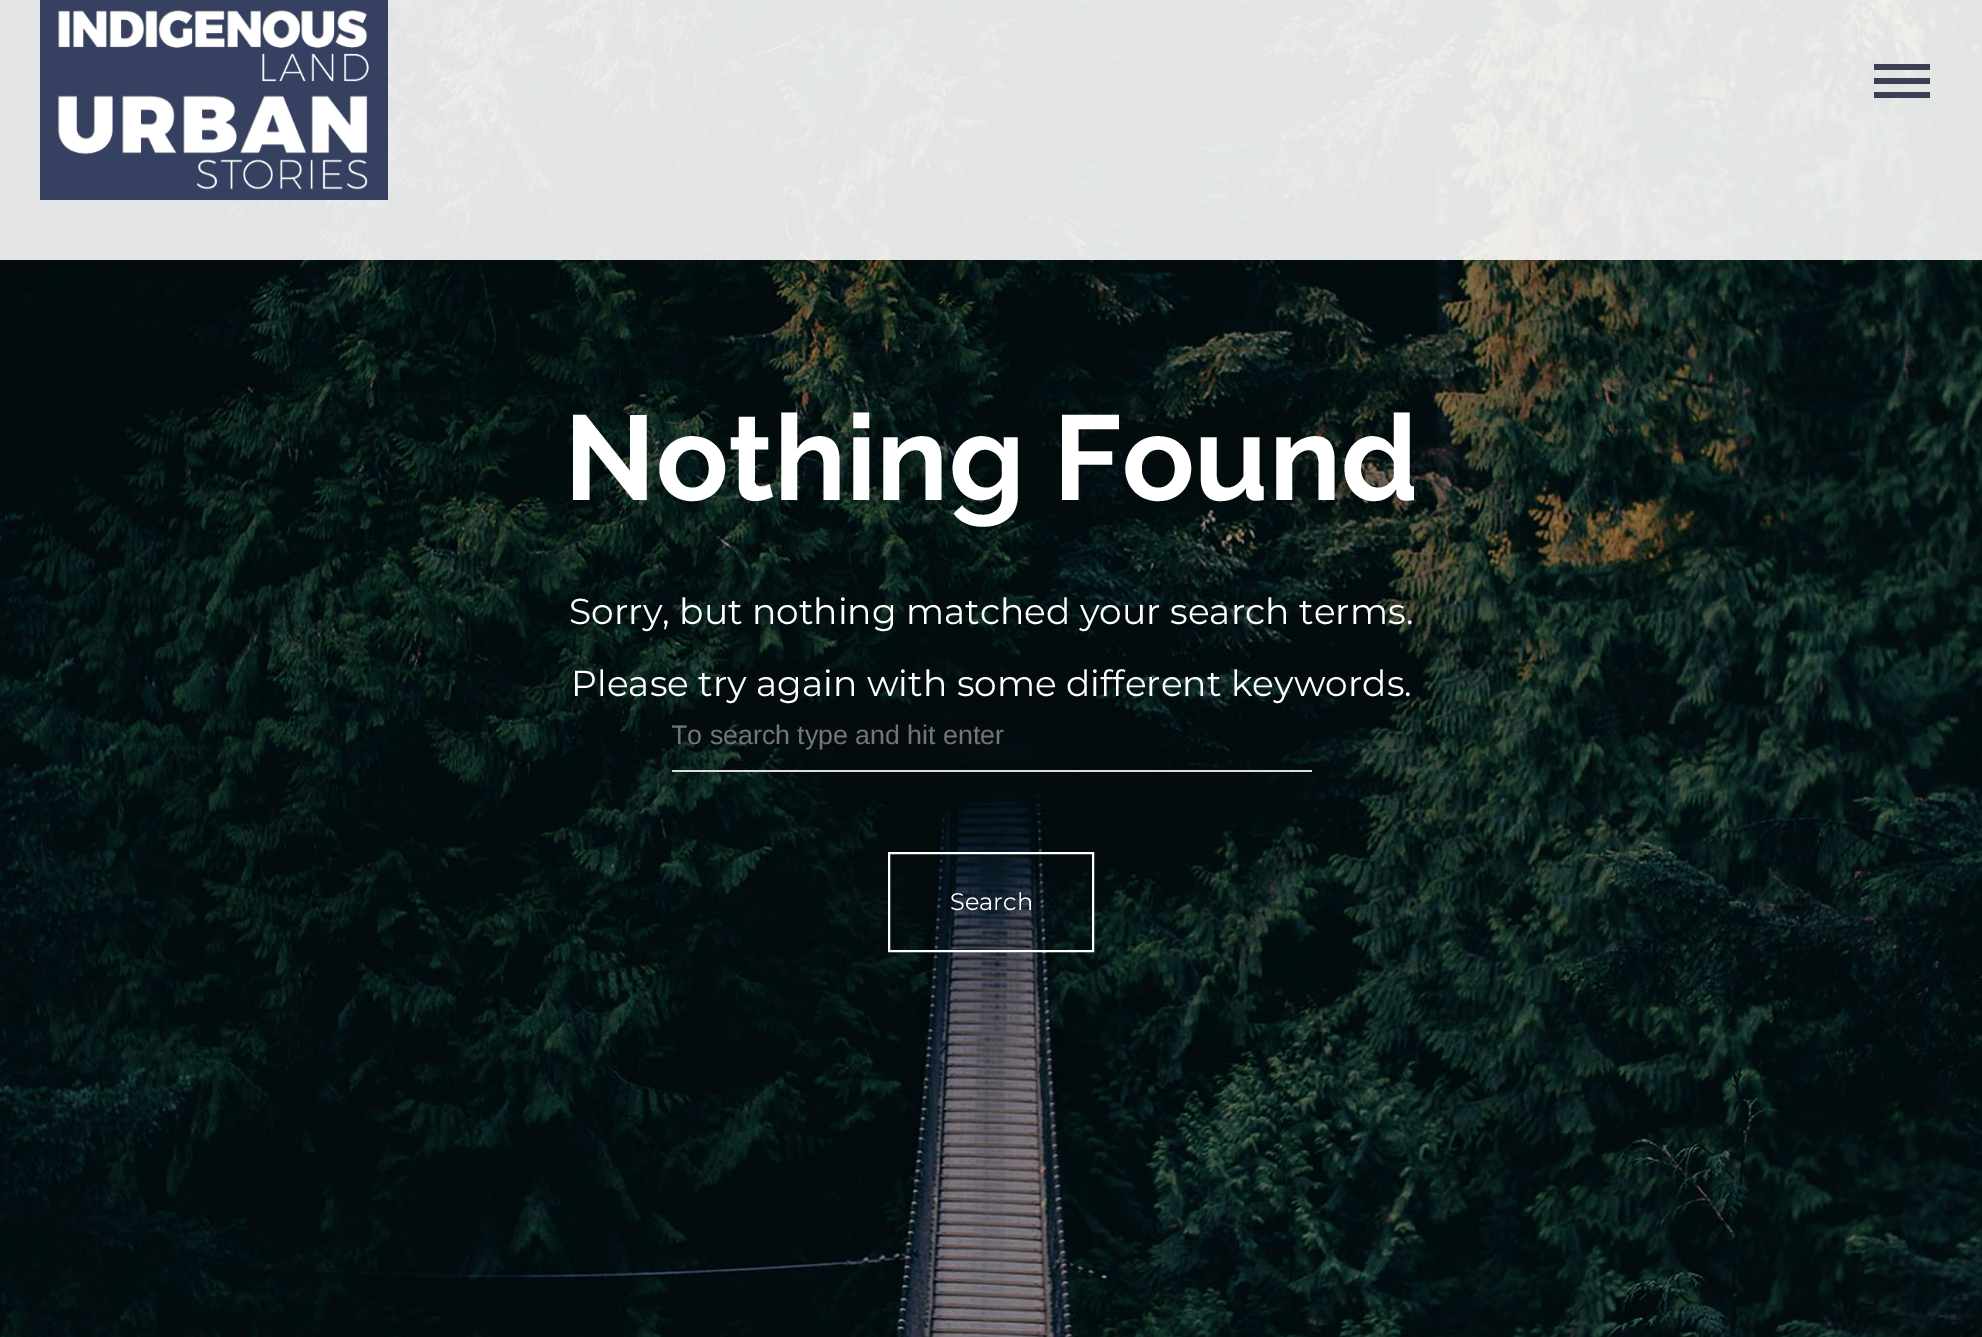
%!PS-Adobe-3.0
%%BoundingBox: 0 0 1982 1337
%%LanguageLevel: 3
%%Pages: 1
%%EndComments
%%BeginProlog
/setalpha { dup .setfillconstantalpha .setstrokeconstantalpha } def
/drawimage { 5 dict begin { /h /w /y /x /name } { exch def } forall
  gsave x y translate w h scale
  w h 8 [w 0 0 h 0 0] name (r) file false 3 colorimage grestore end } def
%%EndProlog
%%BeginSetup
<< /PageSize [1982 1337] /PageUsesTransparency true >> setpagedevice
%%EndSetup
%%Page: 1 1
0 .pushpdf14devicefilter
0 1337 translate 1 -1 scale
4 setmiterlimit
1 setgray
0 0 1982 1337 rectfill
(images/2.raw) 0 0 1982 1337 drawimage
0.89 setalpha
0 0 1982 260 rectfill
1 setalpha
(images/1.raw) 40 0 348 200 drawimage
0.231 0.251 0.329 setrgbcolor
1874 78 56 6 rectfill
1874 64 56 6 rectfill
1874 92 56 6 rectfill
0.867 setgray
672 770 640 2 rectfill
1 setgray
2 setlinewidth
889 853 204 98 rectstroke
/Raleway-Bold [120 0 0 -120 0 0] selectfont
564 500 moveto (Nothing Found) show
/Montserrat-Regular [36 0 0 -36 0 0] selectfont
569 624 moveto (Sorry, but nothing matched your search terms.) show
571 696 moveto (Please try again with some different keywords.) show
gsave
672 720 614 30 rectclip
/LiberationSans-Regular [26.75 0 0 -26.75 0 0] selectfont
0.459 setgray
671 744 moveto (To search type and hit enter) show
grestore
/Montserrat-Regular [24 0 0 -24 0 0] selectfont
950 910 moveto (Search) show
.poppdf14devicefilter showpage
%%EOF
